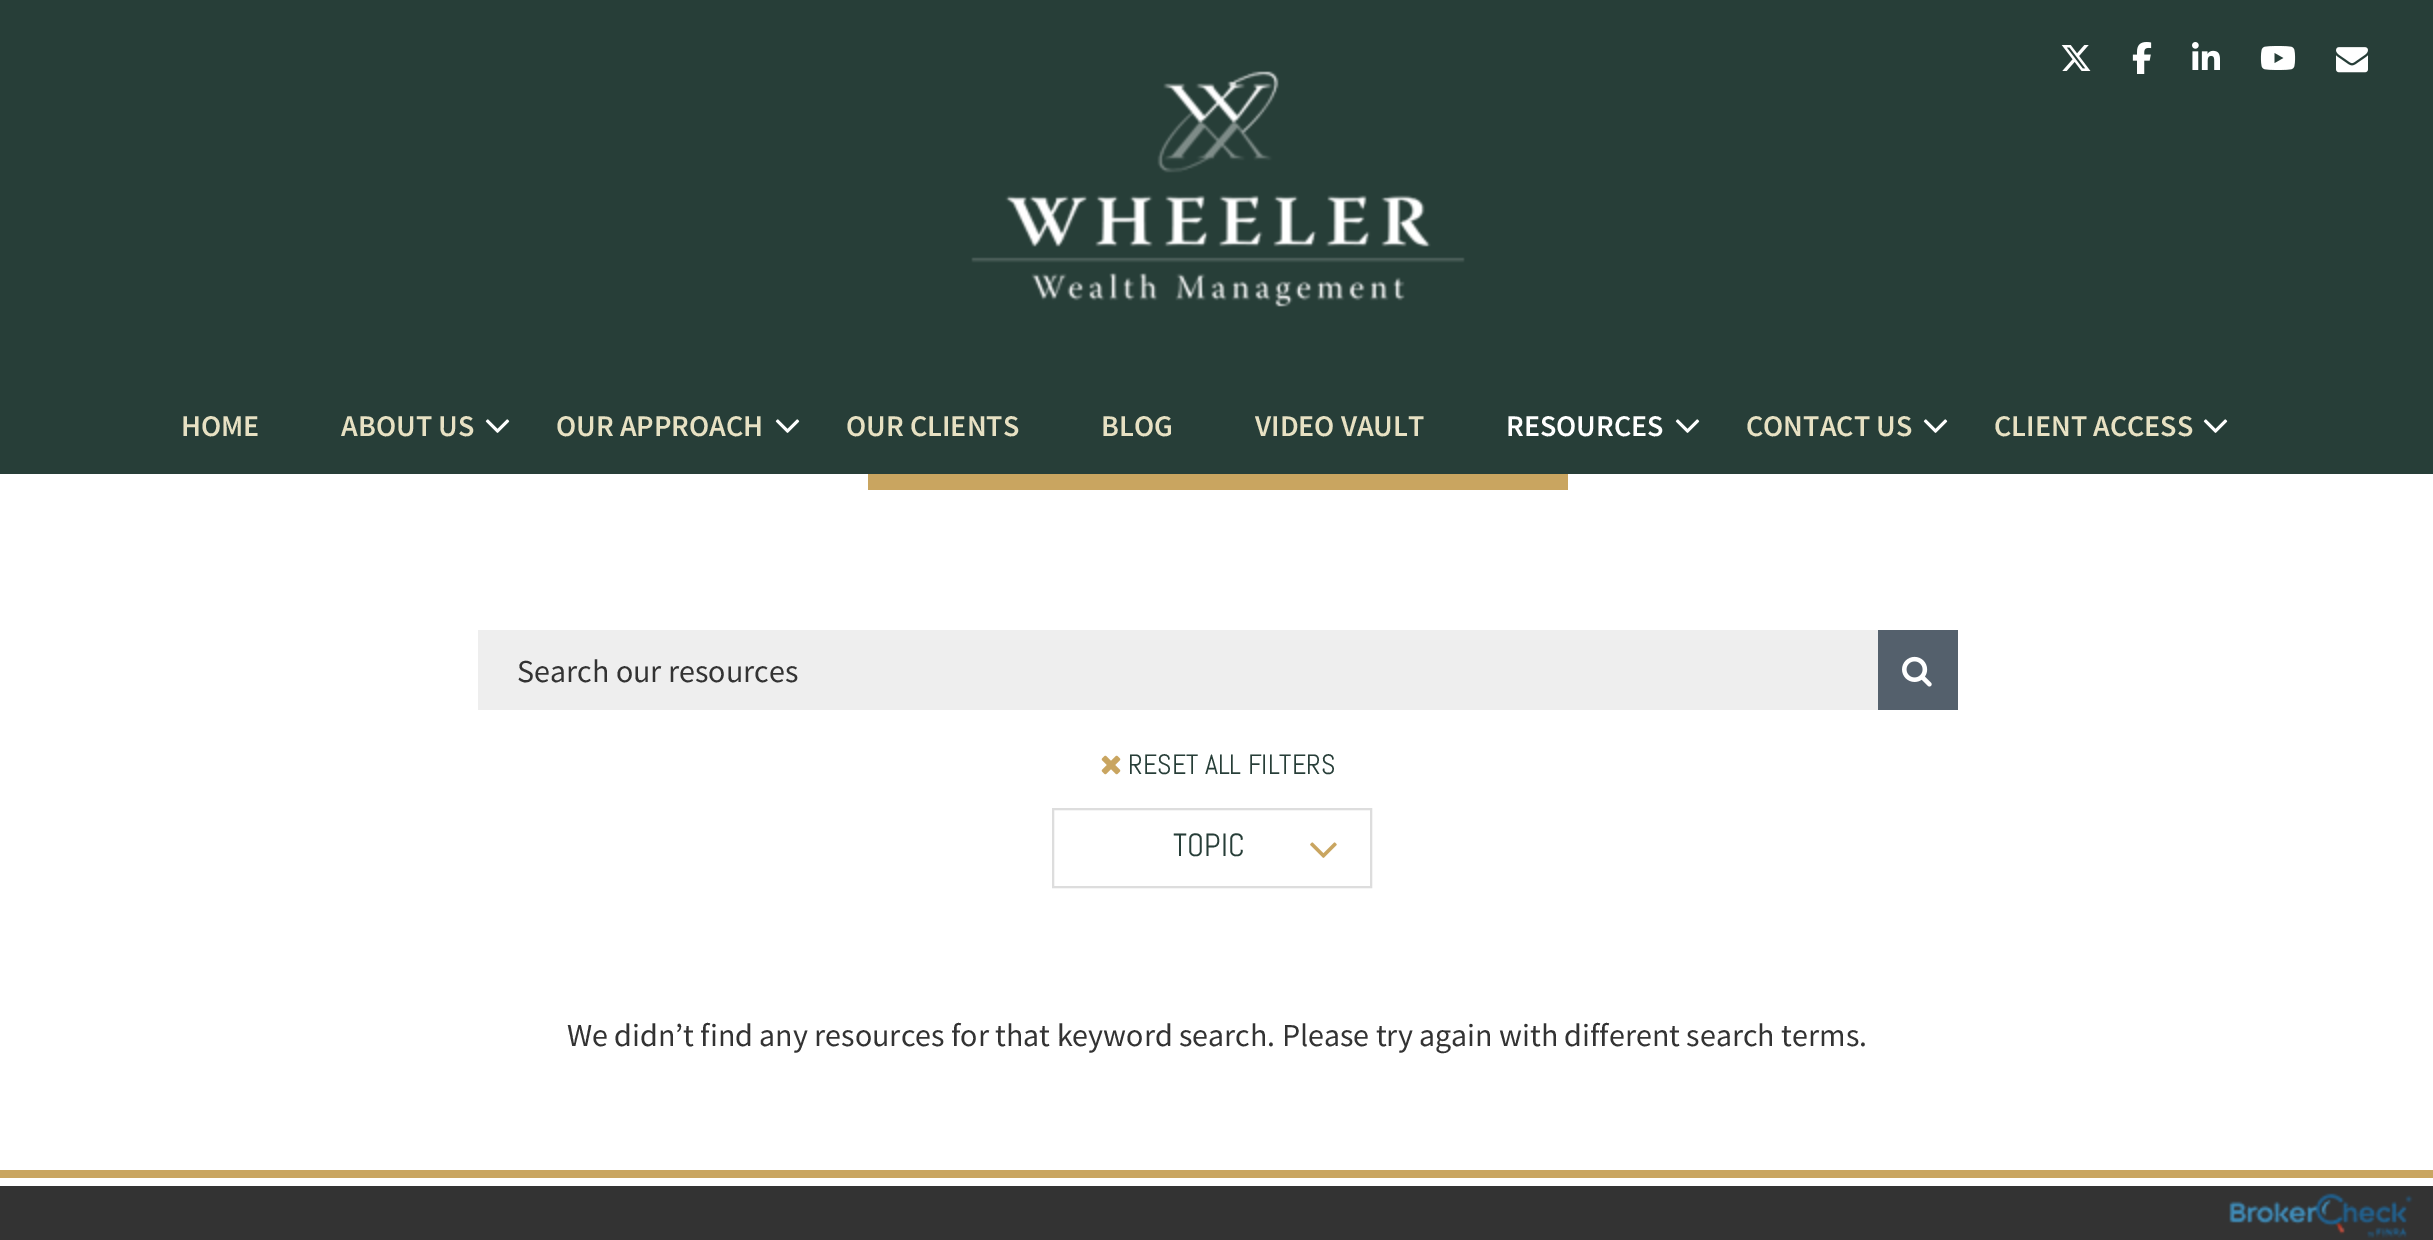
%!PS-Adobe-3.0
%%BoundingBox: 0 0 2433 1240
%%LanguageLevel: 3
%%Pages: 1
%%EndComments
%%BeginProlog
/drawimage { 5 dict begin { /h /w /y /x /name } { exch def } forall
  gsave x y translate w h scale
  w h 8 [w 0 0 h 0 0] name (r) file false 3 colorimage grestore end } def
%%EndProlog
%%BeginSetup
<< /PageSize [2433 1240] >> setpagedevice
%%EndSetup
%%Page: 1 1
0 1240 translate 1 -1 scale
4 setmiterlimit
1 setgray
0 0 2433 1240 rectfill
0.153 0.243 0.22 setrgbcolor
0 0 2433 474 rectfill
(images/1.raw) 2061 45 30 26 drawimage
(images/2.raw) 2132 42 20 32 drawimage
(images/3.raw) 2192 42 28 28 drawimage
(images/4.raw) 2260 46 36 24 drawimage
(images/5.raw) 2336 47 32 26 drawimage
(images/6.raw) 971 71 494 236 drawimage
(images/7.raw) 485 419 25 14 drawimage
(images/7.raw) 775 419 25 14 drawimage
(images/7.raw) 1675 419 25 14 drawimage
(images/7.raw) 1923 419 25 14 drawimage
(images/7.raw) 2203 419 25 14 drawimage
0.788 0.647 0.376 setrgbcolor
868 474 700 16 rectfill
0.933 setgray
478 630 1400 80 rectfill
0.329 0.376 0.424 setrgbcolor
1878 630 80 80 rectfill
(images/8.raw) 1902 656 30 31 drawimage
(images/9.raw) 1101 755 20 20 drawimage
0.867 setgray
2 setlinewidth
1053 809 318 78 rectstroke
(images/10.raw) 1310 842 27 16 drawimage
0.788 0.647 0.376 setrgbcolor
0 1170 2433 8 rectfill
0.2 setgray
0 1186 2433 54 rectfill
(images/11.raw) 2229 1193 184 45 drawimage
/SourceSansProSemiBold-SemiBold [30 0 0 -30 0 0] selectfont
0.906 0.882 0.765 setrgbcolor
181 436 moveto (HOME) show
341 436 moveto (ABOUT US) show
556 436 moveto (OUR APPROACH) show
846 436 moveto (OUR CLIENTS) show
1101 436 moveto (BLOG) show
1255 436 moveto (VIDEO VAULT) show
1 setgray
1506 436 moveto (RESOURCES) show
0.906 0.882 0.765 setrgbcolor
1746 436 moveto (CONTACT US) show
1994 436 moveto (CLIENT ACCESS) show
/SourceSansPro-Regular [32 0 0 -32 0 0] selectfont
0.2 setgray
517 682 moveto (Search our resources) show
/Abel-Regular [28 0 0 -28 0 0] selectfont
0.153 0.243 0.22 setrgbcolor
1128 774 moveto (RESET ALL FILTERS) show
/Abel-Regular [32 0 0 -32 0 0] selectfont
1173 856 moveto (TOPIC) show
/SourceSansPro-Regular [32 0 0 -32 0 0] selectfont
0.2 setgray
567 1046 moveto (We didn’t find any resources for that keyword search. Please try again with different search terms.) show
showpage
%%EOF
